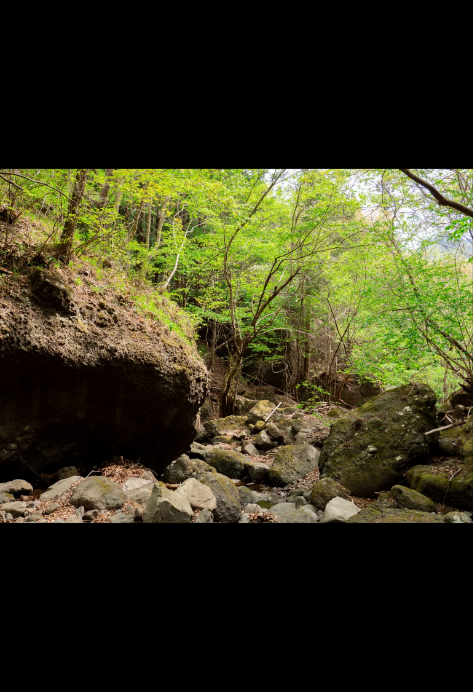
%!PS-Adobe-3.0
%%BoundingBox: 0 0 473 692
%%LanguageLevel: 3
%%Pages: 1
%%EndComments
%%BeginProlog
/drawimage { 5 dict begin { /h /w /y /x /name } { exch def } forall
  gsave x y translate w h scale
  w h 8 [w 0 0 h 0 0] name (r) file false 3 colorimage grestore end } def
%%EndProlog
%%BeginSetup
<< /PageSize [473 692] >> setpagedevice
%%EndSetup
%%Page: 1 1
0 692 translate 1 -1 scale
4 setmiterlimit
0 setgray
0 0 473 692 rectfill
(images/1.raw) 0 168 473 356 drawimage
showpage
%%EOF
